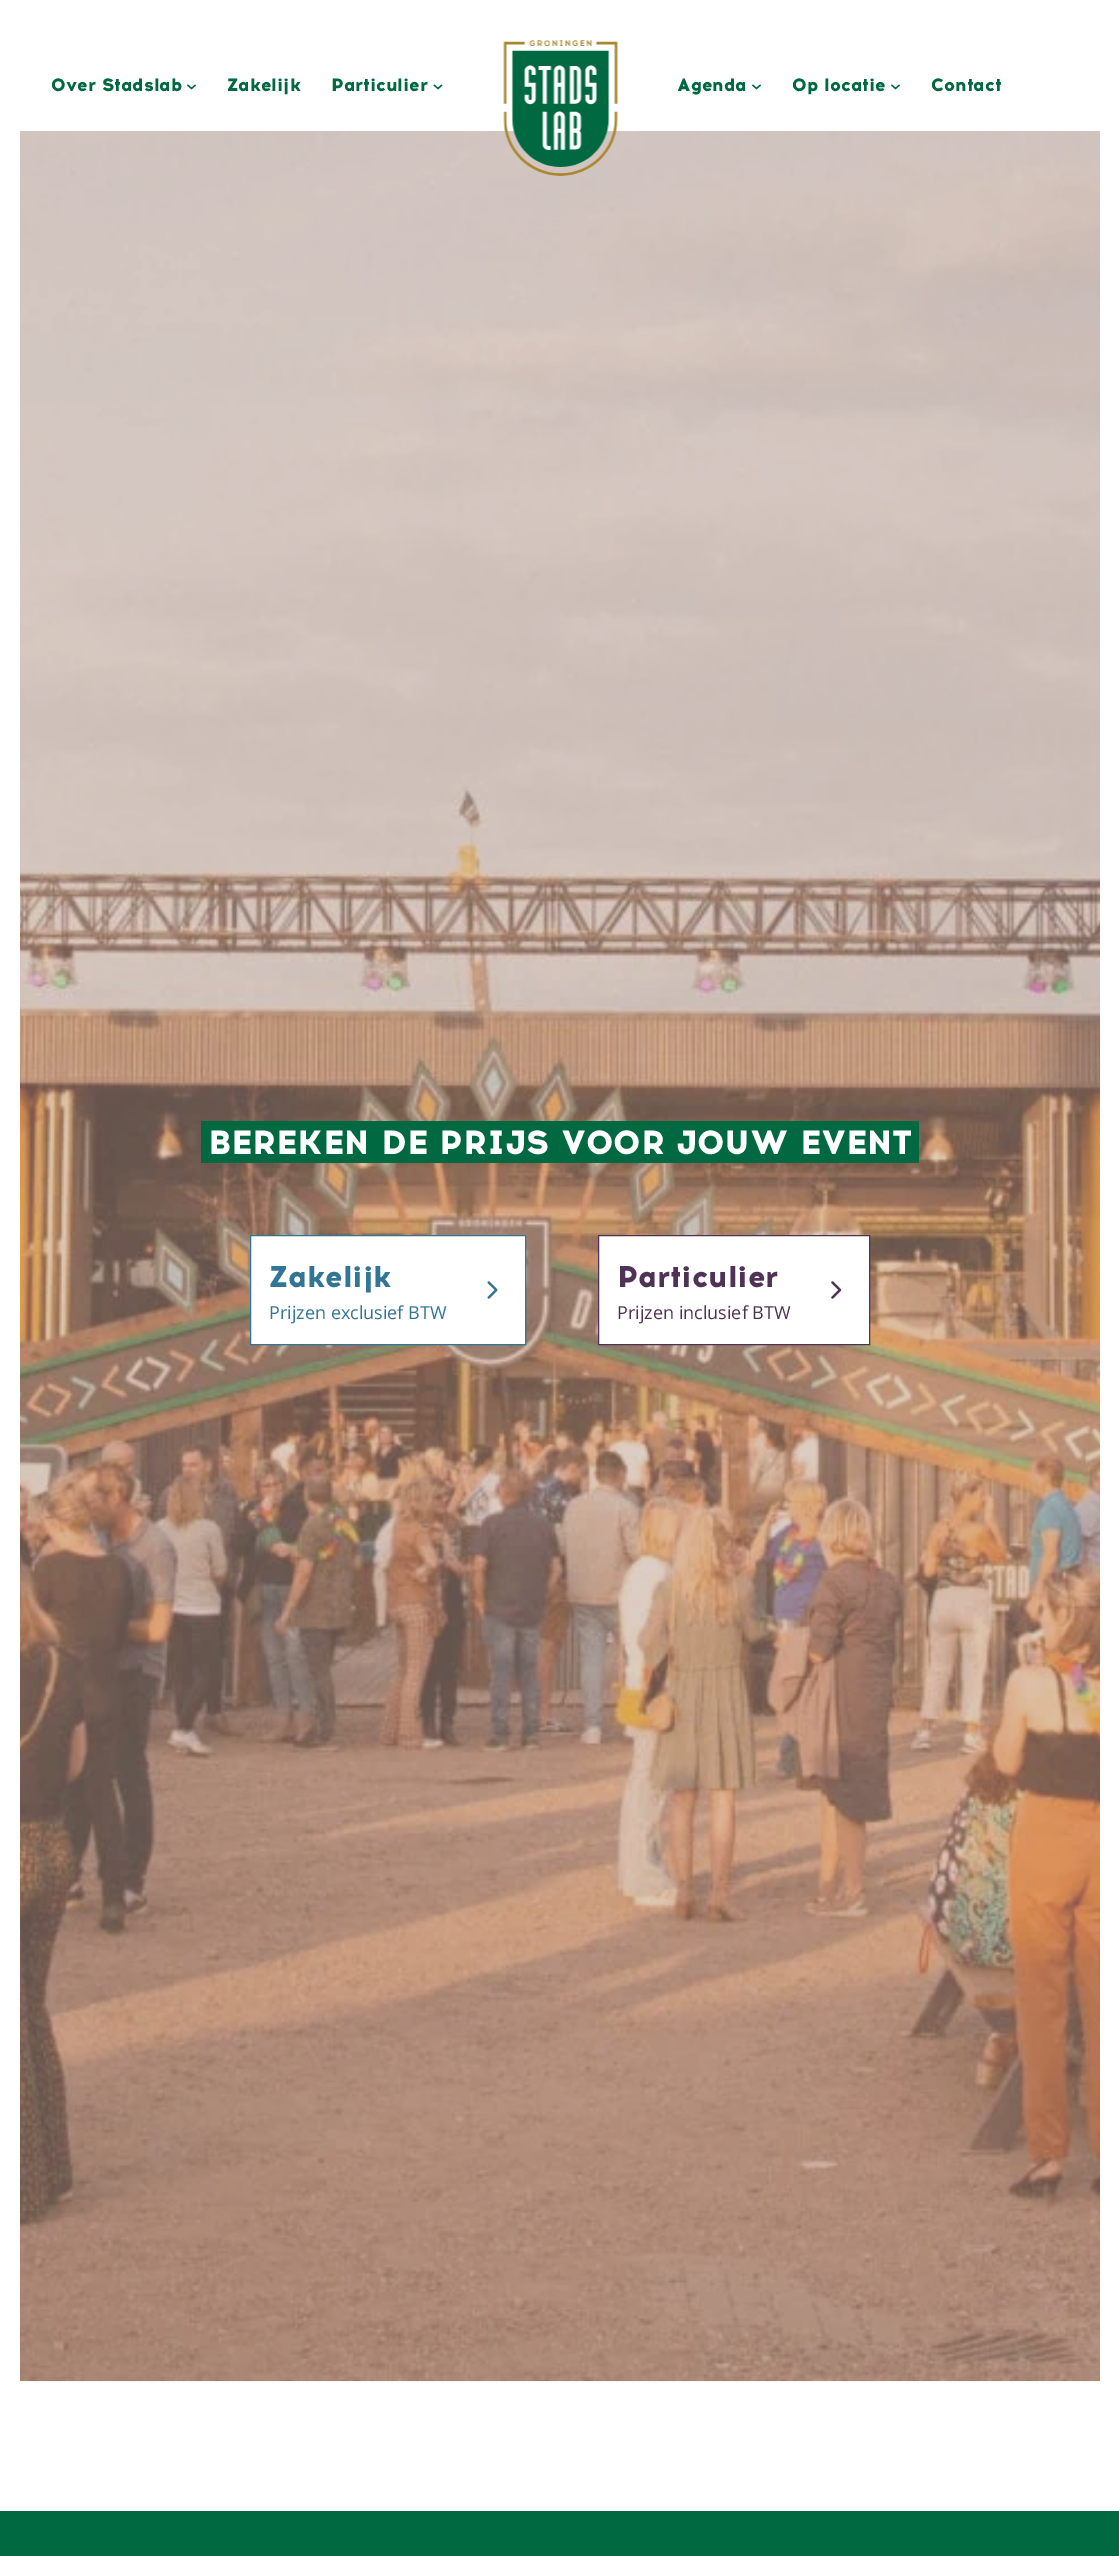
%!PS-Adobe-3.0
%%BoundingBox: 0 0 1119 2556
%%LanguageLevel: 3
%%Pages: 1
%%EndComments
%%BeginProlog
/drawimage { 5 dict begin { /h /w /y /x /name } { exch def } forall
  gsave x y translate w h scale
  w h 8 [w 0 0 h 0 0] name (r) file false 3 colorimage grestore end } def
%%EndProlog
%%BeginSetup
<< /PageSize [1119 2556] >> setpagedevice
%%EndSetup
%%Page: 1 1
0 2556 translate 1 -1 scale
4 setmiterlimit
1 setgray
0 0 1119 2556 rectfill
0 0.412 0.255 setrgbcolor
1.3 setlinewidth
newpath 187.5 85 moveto 191.5 88.5 lineto 195.5 85 lineto stroke
newpath 434 85 moveto 438 88.5 lineto 442 85 lineto stroke
(images/2.raw) 20 131 1080 2251 drawimage
(images/1.raw) 503 40 115 136 drawimage
newpath 752.5 85 moveto 756.5 88.5 lineto 760.5 85 lineto stroke
newpath 891.5 85 moveto 895.5 88.5 lineto 899.5 85 lineto stroke
201 1121 718 42 rectfill
1 setgray
newpath 250.5 1235.5 moveto 525.5 1235.5 lineto 525.5 1344.5 lineto 250.5 1344.5 lineto closepath gsave fill grestore
0.2 0.459 0.584 setrgbcolor
1 setlinewidth
stroke
(images/3.raw) 487 1281 11 18 drawimage
1 setgray
newpath 598.5 1235.5 moveto 869.5 1235.5 lineto 869.5 1344.5 lineto 598.5 1344.5 lineto closepath gsave fill grestore
0.314 0.196 0.341 setrgbcolor
stroke
(images/4.raw) 831 1281 11 18 drawimage
0 0.412 0.255 setrgbcolor
0 2511 1119 45 rectfill
/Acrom-ExtraBold [18 0 0 -18 0 0] selectfont
51 91 moveto (Over Stadslab) show
227 91 moveto (Zakelijk) show
331 91 moveto (Particulier) show
677 91 moveto (Agenda) show
792 91 moveto (Op locatie) show
931 91 moveto (Contact) show
/Acrom-ExtraBold [33.6 0 0 -33.6 0 0] selectfont
1 setgray
208 1154 moveto (BEREKEN DE PRIJS VOOR JOUW EVENT) show
/Acrom-ExtraBold [30 0 0 -30 0 0] selectfont
0.2 0.459 0.584 setrgbcolor
269 1287 moveto (Zakelijk) show
/OpenSans-Regular [18 0 0 -18 0 0] selectfont
269 1319 moveto (Prijzen exclusief BTW) show
/Acrom-ExtraBold [30 0 0 -30 0 0] selectfont
0.314 0.196 0.341 setrgbcolor
617 1287 moveto (Particulier) show
/OpenSans-Regular [18 0 0 -18 0 0] selectfont
617 1319 moveto (Prijzen inclusief BTW) show
showpage
%%EOF
